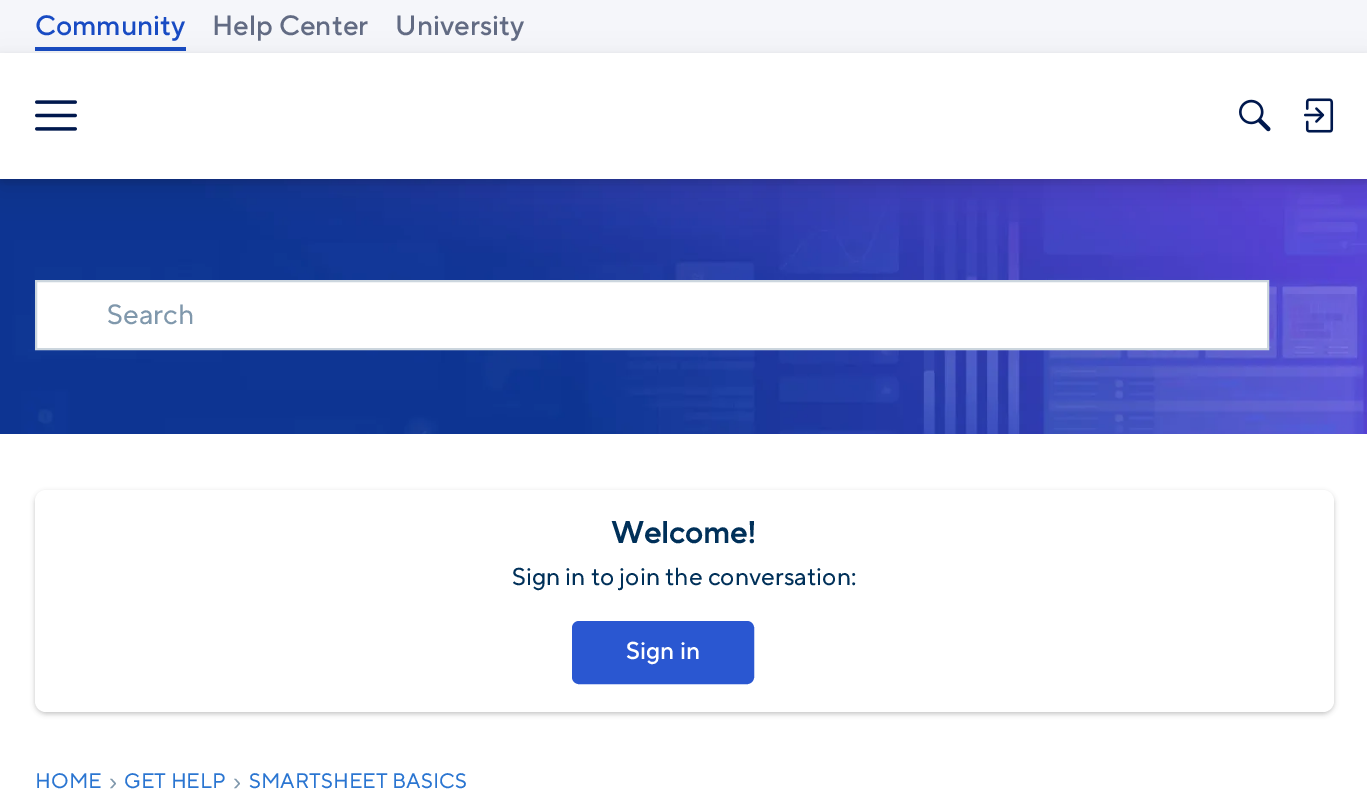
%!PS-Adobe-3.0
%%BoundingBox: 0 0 1367 806
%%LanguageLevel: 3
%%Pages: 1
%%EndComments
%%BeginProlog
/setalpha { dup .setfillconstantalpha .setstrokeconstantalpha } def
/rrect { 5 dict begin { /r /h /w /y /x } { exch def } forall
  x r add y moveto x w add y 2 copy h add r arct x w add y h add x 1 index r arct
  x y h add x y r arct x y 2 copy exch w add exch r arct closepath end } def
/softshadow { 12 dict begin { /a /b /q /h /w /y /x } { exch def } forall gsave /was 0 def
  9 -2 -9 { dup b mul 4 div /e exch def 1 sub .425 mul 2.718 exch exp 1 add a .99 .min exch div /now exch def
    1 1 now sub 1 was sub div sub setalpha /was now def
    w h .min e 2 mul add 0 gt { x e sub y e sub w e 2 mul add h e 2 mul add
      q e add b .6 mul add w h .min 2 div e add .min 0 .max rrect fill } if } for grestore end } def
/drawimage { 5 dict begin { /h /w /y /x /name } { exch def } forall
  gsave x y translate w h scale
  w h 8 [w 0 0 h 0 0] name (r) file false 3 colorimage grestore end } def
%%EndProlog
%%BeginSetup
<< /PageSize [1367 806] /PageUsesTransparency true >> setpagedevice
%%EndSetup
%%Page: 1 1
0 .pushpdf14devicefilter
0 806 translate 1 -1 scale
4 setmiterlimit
1 setgray
0 0 1367 806 rectfill
0.961 0.965 0.98 setrgbcolor
0 0 1367 53 rectfill
0.094 0.294 0.765 setrgbcolor
35 47 151 4 rectfill
(images/4.raw) 0 179 1367 255 drawimage
0 setgray
0 63 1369 126 0 14 0.1 softshadow
0 56 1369 126 0 3.5 0.12 softshadow
1 setgray
0 53 1367 126 rectfill
(images/1.raw) 35 100 42 31 drawimage
(images/2.raw) 1239 99 32 33 drawimage
(images/3.raw) 1304 98 30 35 drawimage
newpath 36 281 moveto 1268 281 lineto 1268 349 lineto 36 349 lineto closepath gsave fill grestore
0.8 0.839 0.871 setrgbcolor
2 setlinewidth
stroke
0 setgray
35 492 1299 222 11 2.5 0.22 softshadow
1 setgray
35 490 1299 222 11 rrect fill
0.165 0.341 0.82 setrgbcolor
573 622 180 61 6 rrect gsave fill grestore
stroke
/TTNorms-Medium [28 0 0 -28 0 0] selectfont
0.094 0.294 0.765 setrgbcolor
35 35 moveto (Community) show
0.384 0.42 0.514 setrgbcolor
212 35 moveto (Help Center) show
395 35 moveto (University) show
/TTNorms-Regular [28 0 0 -28 0 0] selectfont
0.502 0.596 0.675 setrgbcolor
107 324 moveto (Search) show
/TTNorms-SemiBold [31.5 0 0 -31.5 0 0] selectfont
0 0.188 0.349 setrgbcolor
611 543 moveto -0.5 0 (Welcome!) ashow
/TTNorms-Regular [24.5 0 0 -24.5 0 0] selectfont
512 585 moveto (Sign in to join the conversation:) show
/TTNorms-Medium [24.5 0 0 -24.5 0 0] selectfont
1 setgray
626 659 moveto (Sign in) show
/TTNorms-Regular [21 0 0 -21 0 0] selectfont
0.165 0.459 0.82 setrgbcolor
35 788 moveto (HOME) show
/LiberationSans-Regular [24.5 0 0 -24.5 0 0] selectfont
0.502 0.596 0.675 setrgbcolor
109 790 moveto (›) show
/TTNorms-Regular [21 0 0 -21 0 0] selectfont
0.165 0.459 0.82 setrgbcolor
124 788 moveto (GET HELP) show
/LiberationSans-Regular [24.5 0 0 -24.5 0 0] selectfont
0.502 0.596 0.675 setrgbcolor
233 790 moveto (›) show
/TTNorms-Regular [21 0 0 -21 0 0] selectfont
0.165 0.459 0.82 setrgbcolor
249 788 moveto (SMARTSHEET BASICS) show
.poppdf14devicefilter showpage
%%EOF
